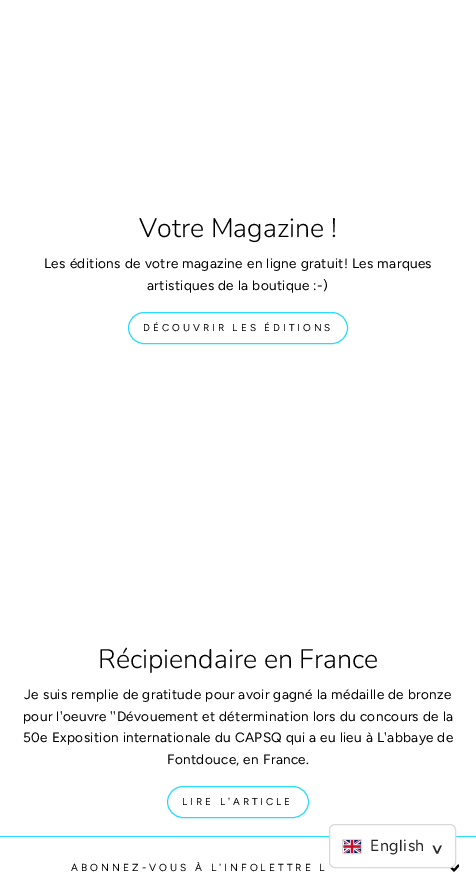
%!PS-Adobe-3.0
%%BoundingBox: 0 0 476 888
%%LanguageLevel: 3
%%Pages: 1
%%EndComments
%%BeginProlog
/rrect { 5 dict begin { /r /h /w /y /x } { exch def } forall
  x r add y moveto x w add y 2 copy h add r arct x w add y h add x 1 index r arct
  x y h add x y r arct x y 2 copy exch w add exch r arct closepath end } def
/drawimage { 5 dict begin { /h /w /y /x /name } { exch def } forall
  gsave x y translate w h scale
  w h 8 [w 0 0 h 0 0] name (r) file false 3 colorimage grestore end } def
%%EndProlog
%%BeginSetup
<< /PageSize [476 888] >> setpagedevice
%%EndSetup
%%Page: 1 1
0 888 translate 1 -1 scale
4 setmiterlimit
1 setgray
0 0 476 888 rectfill
0.157 0.863 1 setrgbcolor
128.5 312.5 219 31 15.5 rrect stroke
167.5 786.5 141 31 15.5 rrect stroke
0 836 476 1 rectfill
gsave
449 863 10 10 rectclip
0 setgray
2.1 setlinewidth
1 setlinecap
1 setlinejoin
newpath 449.5 865.5 moveto 454 870.5 lineto 458.5 865.5 lineto stroke
grestore
1 setgray
329.5 824.5 126 43 5.5 rrect gsave fill grestore
0.851 setgray
stroke
342.5 839.5 19 14 1.5 rrect stroke
(images/1.raw) 343 840 18 13 drawimage
/Nunito-Light [26.75 0 0 -26.75 0 0] selectfont
0 setgray
139 237 moveto (Votre Magazine !) show
/Figtree-Regular [13.6 0 0 -13.6 0 0] selectfont
44 268 moveto 0.35 0 (Les éditions de votre magazine en ligne gratuit! Les marques) ashow
147 290 moveto 0.35 0 (artistiques de la boutique :-\)) ashow
/Figtree-Regular [10 0 0 -10 0 0] selectfont
143 331 moveto 3 0 (DÉCOUVRIR LES ÉDITIONS) ashow
/Nunito-Light [26.75 0 0 -26.75 0 0] selectfont
98 668 moveto (Récipiendaire en France) show
/Figtree-Regular [13.6 0 0 -13.6 0 0] selectfont
24 699 moveto 0.35 0 (Je suis remplie de gratitude pour avoir gagné la médaille de bronze) ashow
23 721 moveto 0.35 0 (pour l'oeuvre ''Dévouement et détermination lors du concours de la) ashow
23 742 moveto 0.35 0 (50e Exposition internationale du CAPSQ qui a eu lieu à L'abbaye de) ashow
167 764 moveto 0.35 0 (Fontdouce, en France.) ashow
/Figtree-Regular [10 0 0 -10 0 0] selectfont
182 805 moveto 3 0 (LIRE L'ARTICLE) ashow
/Figtree-Regular [10.2 0 0 -10.2 0 0] selectfont
71 871 moveto 3.05 0 (ABONNEZ-VOUS À L'INFOLETTRE L) ashow
/Figtree-Regular [16 0 0 -16 0 0] selectfont
0.149 setgray
370 851 moveto 0.5 0 (English) ashow
/Figtree-Regular [24 0 0 -24 0 0] selectfont
gsave 430 842 translate 90 rotate 0 0 moveto -7 0 (>) ashow grestore
showpage
%%EOF
